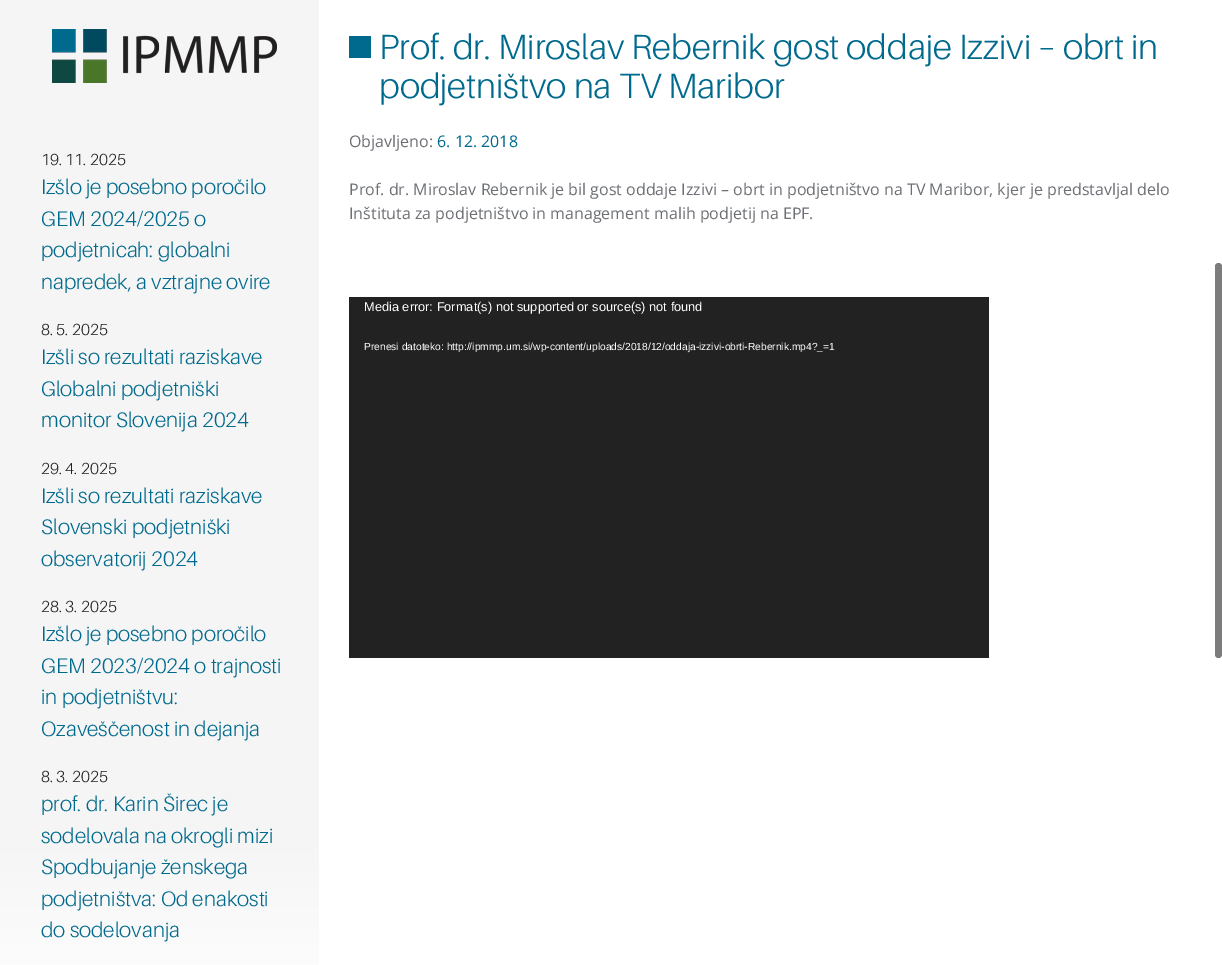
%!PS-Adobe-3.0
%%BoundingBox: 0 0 1222 965
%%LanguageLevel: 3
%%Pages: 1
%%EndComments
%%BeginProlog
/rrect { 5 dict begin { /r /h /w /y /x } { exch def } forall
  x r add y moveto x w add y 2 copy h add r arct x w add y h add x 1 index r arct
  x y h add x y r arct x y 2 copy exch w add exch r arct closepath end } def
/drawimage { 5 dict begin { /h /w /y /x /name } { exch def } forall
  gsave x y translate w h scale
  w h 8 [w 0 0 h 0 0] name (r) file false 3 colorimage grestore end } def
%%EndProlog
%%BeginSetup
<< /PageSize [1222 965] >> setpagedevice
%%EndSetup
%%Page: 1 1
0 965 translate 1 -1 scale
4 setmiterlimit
1 setgray
0 0 1222 965 rectfill
0.961 setgray
0 0 319 832 rectfill
(images/1.raw) 52 29 225 54 drawimage
gsave newpath 0 832 moveto 319 832 lineto 319 965 lineto 0 965 lineto closepath clip newpath
<< /ShadingType 2 /ColorSpace /DeviceRGB /Coords [-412 832 -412 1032] /Extend [true true] /Function << /FunctionType 2 /Domain [0 1] /C0 [0.961 0.961 0.961] /C1 [1 1 1] /N 1 >> >> shfill grestore
0 0.416 0.557 setrgbcolor
349 36 22 22 rectfill
0.133 setgray
349 297 640 361 rectfill
0.486 setgray
1215 263 7 395 3.5 rrect fill
/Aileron-Light [16 0 0 -16 0 0] selectfont
0.137 0.122 0.125 setrgbcolor
41 165 moveto (19. 11. 2025) show
/Aileron-Light [21 0 0 -21 0 0] selectfont
0 0.416 0.557 setrgbcolor
41 194 moveto (Izšlo je posebno poročilo) show
41 226 moveto (GEM 2024/2025 o) show
41 257 moveto (podjetnicah: globalni) show
41 289 moveto (napredek, a vztrajne ovire) show
/Aileron-Light [16 0 0 -16 0 0] selectfont
0.137 0.122 0.125 setrgbcolor
41 335 moveto (8. 5. 2025) show
/Aileron-Light [21 0 0 -21 0 0] selectfont
0 0.416 0.557 setrgbcolor
41 364 moveto (Izšli so rezultati raziskave) show
41 396 moveto (Globalni podjetniški) show
41 427 moveto (monitor Slovenija 2024) show
/Aileron-Light [16 0 0 -16 0 0] selectfont
0.137 0.122 0.125 setrgbcolor
41 474 moveto (29. 4. 2025) show
/Aileron-Light [21 0 0 -21 0 0] selectfont
0 0.416 0.557 setrgbcolor
41 503 moveto (Izšli so rezultati raziskave) show
41 534 moveto (Slovenski podjetniški) show
41 566 moveto (observatorij 2024) show
/Aileron-Light [16 0 0 -16 0 0] selectfont
0.137 0.122 0.125 setrgbcolor
41 612 moveto (28. 3. 2025) show
/Aileron-Light [21 0 0 -21 0 0] selectfont
0 0.416 0.557 setrgbcolor
41 641 moveto (Izšlo je posebno poročilo) show
41 673 moveto (GEM 2023/2024 o trajnosti) show
41 704 moveto (in podjetništvu:) show
41 736 moveto (Ozaveščenost in dejanja) show
/Aileron-Light [16 0 0 -16 0 0] selectfont
0.137 0.122 0.125 setrgbcolor
41 782 moveto (8. 3. 2025) show
/Aileron-Light [21 0 0 -21 0 0] selectfont
0 0.416 0.557 setrgbcolor
41 811 moveto (prof. dr. Karin Širec je) show
41 843 moveto (sodelovala na okrogli mizi) show
41 874 moveto (Spodbujanje ženskega) show
41 906 moveto (podjetništva: Od enakosti) show
41 937 moveto (do sodelovanja) show
/Aileron-Light [35 0 0 -35 0 0] selectfont
379 59 moveto (Prof. dr. Miroslav Rebernik gost oddaje Izzivi – obrt in) show
379 98 moveto (podjetništvo na TV Maribor) show
/OpenSans-Regular [16 0 0 -16 0 0] selectfont
0.424 0.435 0.451 setrgbcolor
349 147 moveto (Objavljeno:) show
0 0.416 0.557 setrgbcolor
437 147 moveto (6. 12. 2018) show
0.424 0.435 0.451 setrgbcolor
349 195 moveto (Prof. dr. Miroslav Rebernik je bil gost oddaje Izzivi – obrt in podjetništvo na TV Maribor, kjer je predstavljal delo) show
349 219 moveto (Inštituta za podjetništvo in management malih podjetij na EPF.) show
/LiberationSans-Regular [12.8 0 0 -12.8 0 0] selectfont
1 setgray
364 311 moveto (Media error: Format\(s\) not supported or source\(s\) not found) show
/LiberationSans-Regular [10.25 0 0 -10.25 0 0] selectfont
364 350 moveto (Prenesi datoteko: http://ipmmp.um.si/wp-content/uploads/2018/12/oddaja-izzivi-obrti-Rebernik.mp4?_=1) show
showpage
%%EOF
